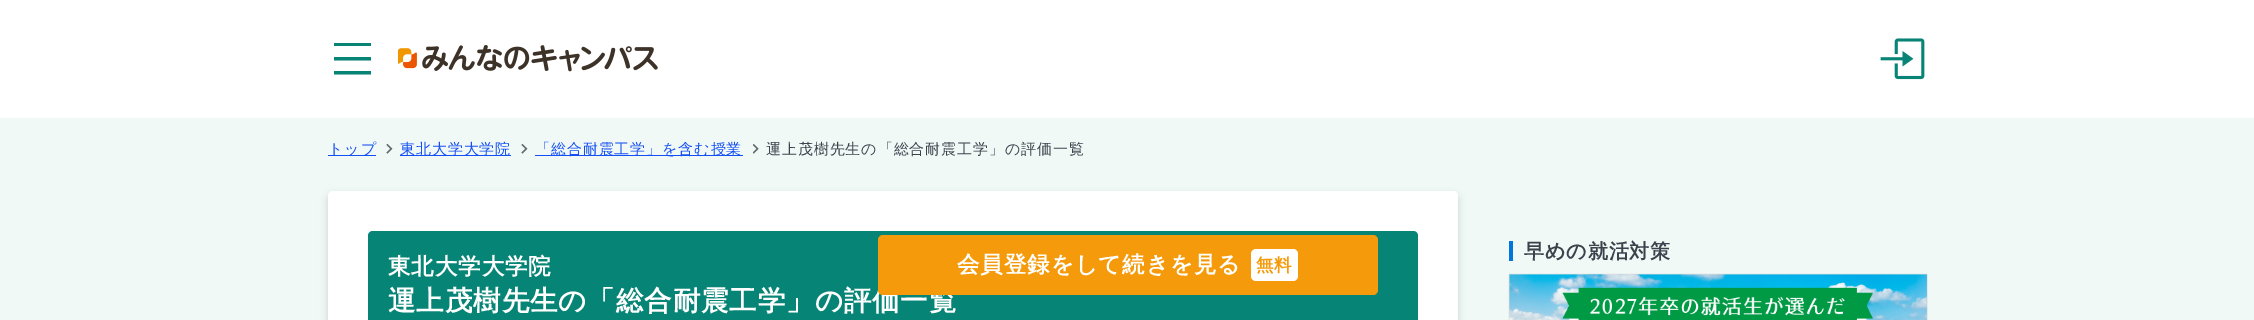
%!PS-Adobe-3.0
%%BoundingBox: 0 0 2254 320
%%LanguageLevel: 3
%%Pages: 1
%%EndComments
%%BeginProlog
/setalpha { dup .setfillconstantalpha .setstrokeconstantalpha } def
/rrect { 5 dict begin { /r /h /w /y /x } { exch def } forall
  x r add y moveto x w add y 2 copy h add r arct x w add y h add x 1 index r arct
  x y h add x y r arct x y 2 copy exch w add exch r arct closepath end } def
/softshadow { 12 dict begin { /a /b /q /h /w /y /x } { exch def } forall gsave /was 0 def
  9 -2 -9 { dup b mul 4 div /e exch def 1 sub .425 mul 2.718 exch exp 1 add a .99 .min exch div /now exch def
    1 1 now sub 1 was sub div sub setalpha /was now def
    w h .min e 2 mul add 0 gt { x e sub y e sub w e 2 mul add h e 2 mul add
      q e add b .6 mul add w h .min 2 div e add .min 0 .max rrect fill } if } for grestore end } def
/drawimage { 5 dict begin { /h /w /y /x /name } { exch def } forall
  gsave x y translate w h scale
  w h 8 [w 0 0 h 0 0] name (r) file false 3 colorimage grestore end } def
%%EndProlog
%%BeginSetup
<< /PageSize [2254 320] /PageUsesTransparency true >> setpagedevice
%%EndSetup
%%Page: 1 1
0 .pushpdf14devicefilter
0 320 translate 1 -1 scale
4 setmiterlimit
0.945 0.976 0.965 setrgbcolor
0 0 2254 320 rectfill
1 setgray
0 0 2254 118 rectfill
0.027 0.518 0.459 setrgbcolor
newpath 371 46 moveto 334 46 lineto 334 43 lineto 371 43 lineto closepath 334 60.5 moveto 371 60.5 lineto 371 57 lineto 334 57 lineto closepath 334 74.5 moveto 371 74.5 lineto 371 71 lineto 334 71 lineto closepath eofill
(images/1.raw) 398 45 260 27 drawimage
(images/2.raw) 1880 38 45 42 drawimage
0.075 0.31 0.953 setrgbcolor
328 155 48 1 rectfill
(images/3.raw) 386 144 7 10 drawimage
400 155 111 1 rectfill
(images/3.raw) 521 144 7 10 drawimage
535 155 208 1 rectfill
(images/4.raw) 753 144 6 10 drawimage
0.004 0.463 0.863 setrgbcolor
1509 241 4 20 rectfill
(images/5.raw) 1508 273 420 47 drawimage
0 setgray
328 195 1130 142 5 4 0.15 softshadow
1 setgray
328 191 1130 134 5 rrect fill
0.024 0.518 0.459 setrgbcolor
newpath 373 231 moveto 1413 231 lineto 1416 231 1418 233 1418 236 curveto 1418 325 lineto 368 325 lineto 368 236 lineto 368 233 370 231 373 231 curveto closepath fill
/WenQuanYiZenHei-Medium [15 0 0 -15 0 0] selectfont
0.075 0.31 0.953 setrgbcolor
328 154 moveto 0.9 0 (トップ) ashow
400 154 moveto 0.9 0 (東北大学大学院) ashow
535 154 moveto 0.9 0 (「総合耐震工学」を含む授業) ashow
0.235 0.255 0.298 setrgbcolor
766 154 moveto 0.9 0 (運上茂樹先生の「総合耐震工学」の評価一覧) ashow
/WenQuanYiZenHei-Bold [20 0 0 -20 0 0] selectfont
1524 258 moveto 0.9 0 (早めの就活対策) ashow
/WenQuanYiZenHei-Bold [22.5 0 0 -22.5 0 0] selectfont
1 setgray
388 274 moveto 0.9 0 (東北大学大学院) ashow
/WenQuanYiZenHei-Bold [27.5 0 0 -27.5 0 0] selectfont
388 310 moveto 0.9 0 (運上茂樹先生の「総合耐震工学」の評価一覧) ashow
0.961 0.604 0.043 setrgbcolor
878 235 500 60 5 rrect fill
/WenQuanYiZenHei-Bold [22.5 0 0 -22.5 0 0] selectfont
1 setgray
957 272 moveto 0.9 0 (会員登録をして続きを見る) ashow
1251 249 47 32 5 rrect fill
/WenQuanYiZenHei-Bold [17.5 0 0 -17.5 0 0] selectfont
0.961 0.604 0.043 setrgbcolor
1256 271 moveto 0.9 0 (無料) ashow
.poppdf14devicefilter showpage
%%EOF
